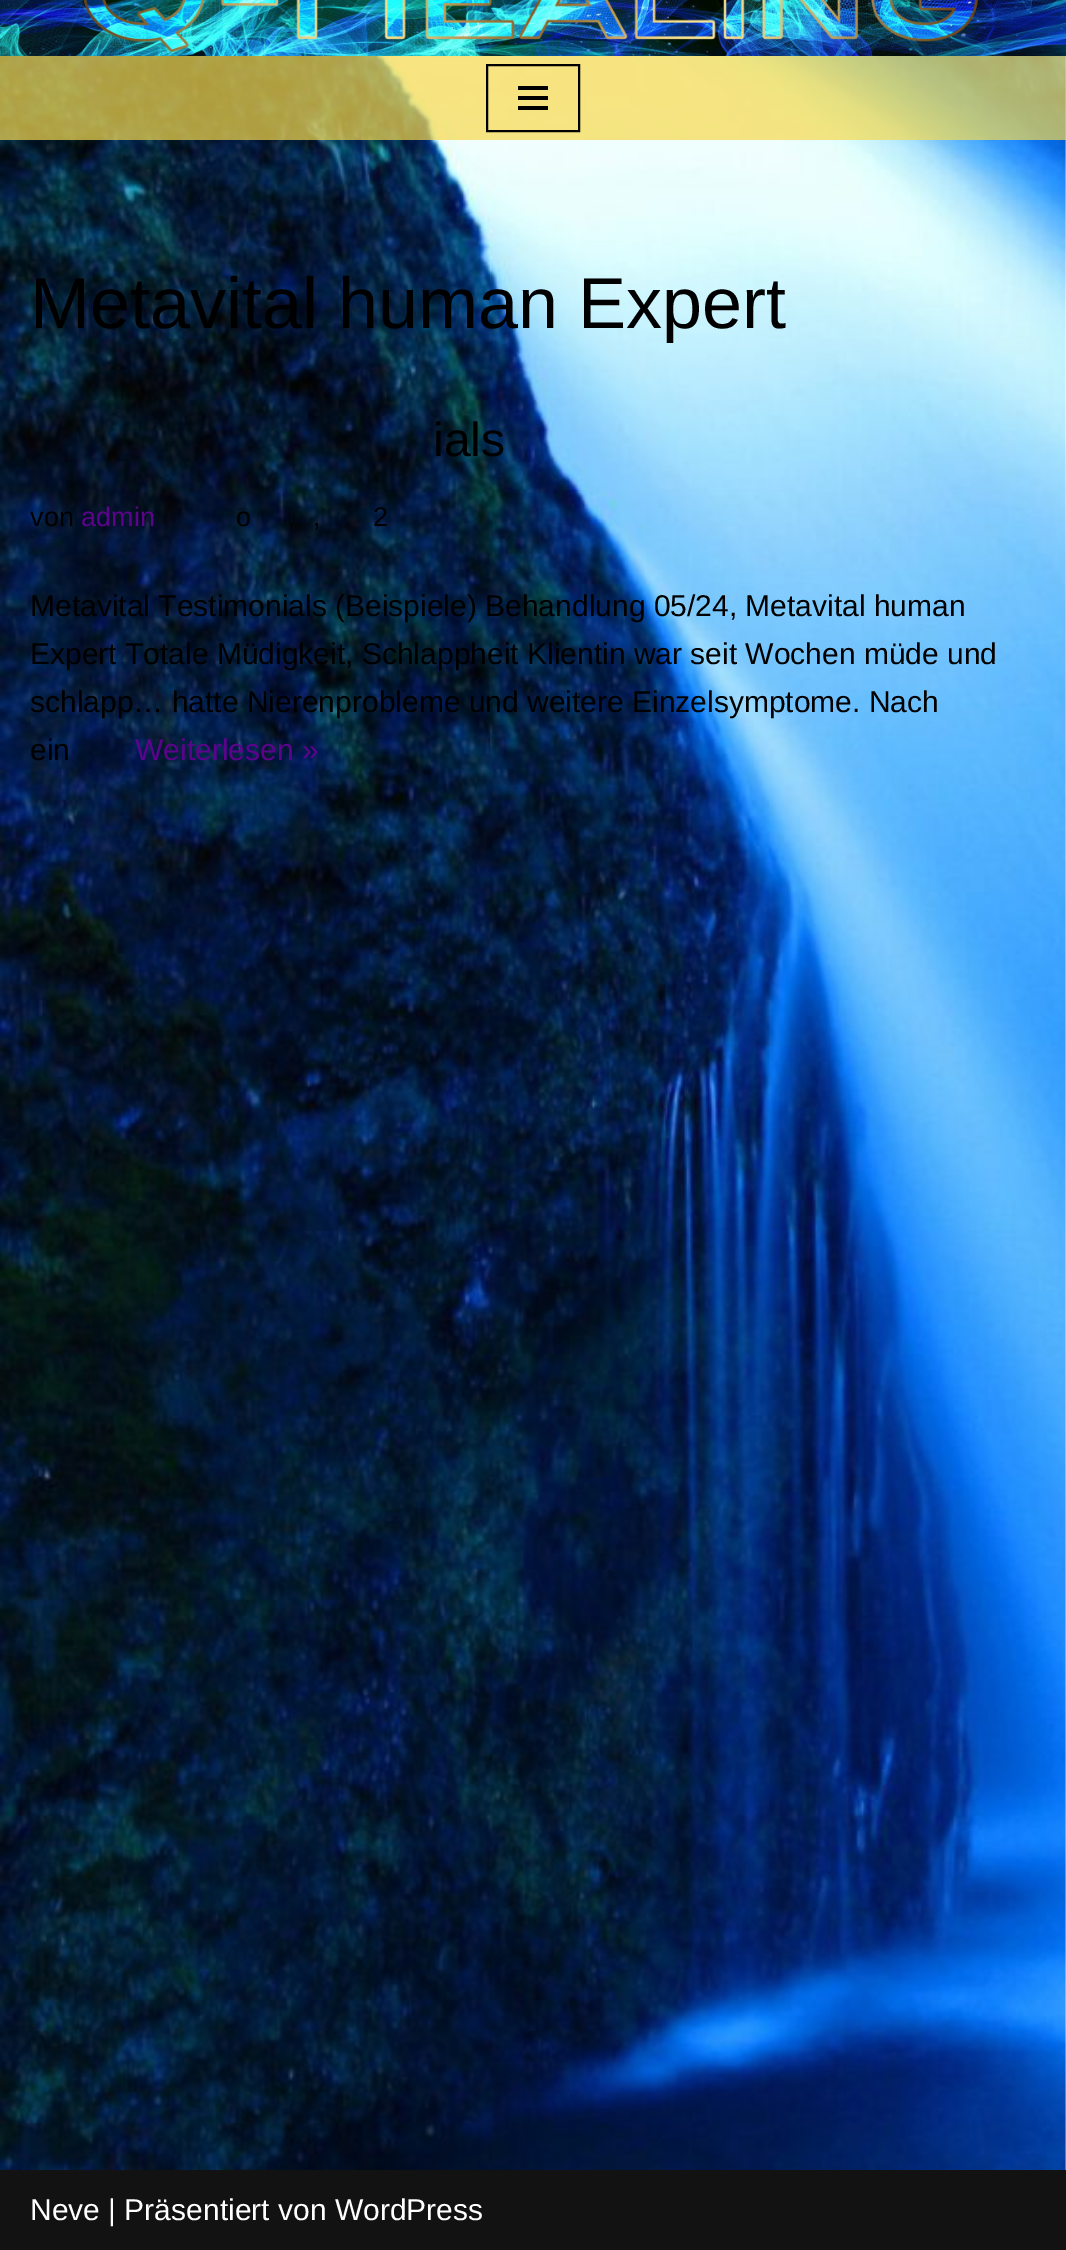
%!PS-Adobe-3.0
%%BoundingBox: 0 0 1066 2250
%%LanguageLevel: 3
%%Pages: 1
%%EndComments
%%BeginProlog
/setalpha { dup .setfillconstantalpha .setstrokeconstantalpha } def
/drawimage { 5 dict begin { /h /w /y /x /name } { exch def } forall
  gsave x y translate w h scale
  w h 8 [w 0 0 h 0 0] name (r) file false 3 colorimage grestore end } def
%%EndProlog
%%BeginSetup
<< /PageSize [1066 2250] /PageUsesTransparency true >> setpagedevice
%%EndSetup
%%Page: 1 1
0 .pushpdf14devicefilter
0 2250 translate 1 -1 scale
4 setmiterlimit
1 setgray
0 0 1066 2250 rectfill
(images/1.raw) 0 56 1066 2114 drawimage
(images/2.raw) 0 0 1066 56 drawimage
0.71 setalpha
0.965 0.855 0.306 setrgbcolor
0 56 1066 84 rectfill
1 setalpha
0 setgray
2 setlinewidth
487 65 92 66 rectstroke
518 86 30 4 rectfill
518 96 30 4 rectfill
518 106 30 4 rectfill
0.071 setgray
0 2170 1066 80 rectfill
/LiberationSans-Regular [72 0 0 -72 0 0] selectfont
0 setgray
30 328 moveto (Metavital human Expert) show
/LiberationSans-Regular [48 0 0 -48 0 0] selectfont
433 456 moveto (ials) show
/LiberationSans-Regular [27 0 0 -27 0 0] selectfont
30 526 moveto (von) show
0.361 0.012 0.549 setrgbcolor
81 526 moveto (admin) show
0 setgray
236 526 moveto (o) show
313 526 moveto (,) show
373 526 moveto (2) show
/LiberationSans-Regular [30 0 0 -30 0 0] selectfont
30 616 moveto (Metavital Testimonials \(Beispiele\) Behandlung 05/24, Metavital human) show
30 664 moveto (Expert Totale Müdigkeit, Schlappheit Klientin war seit Wochen müde und) show
30 712 moveto (schlapp… hatte Nierenprobleme und weitere Einzelsymptome. Nach) show
30 760 moveto (ein) show
0.361 0.012 0.549 setrgbcolor
135 760 moveto (Weiterlesen ») show
1 setgray
30 2220 moveto (Neve | Präsentiert von WordPress) show
.poppdf14devicefilter showpage
%%EOF
